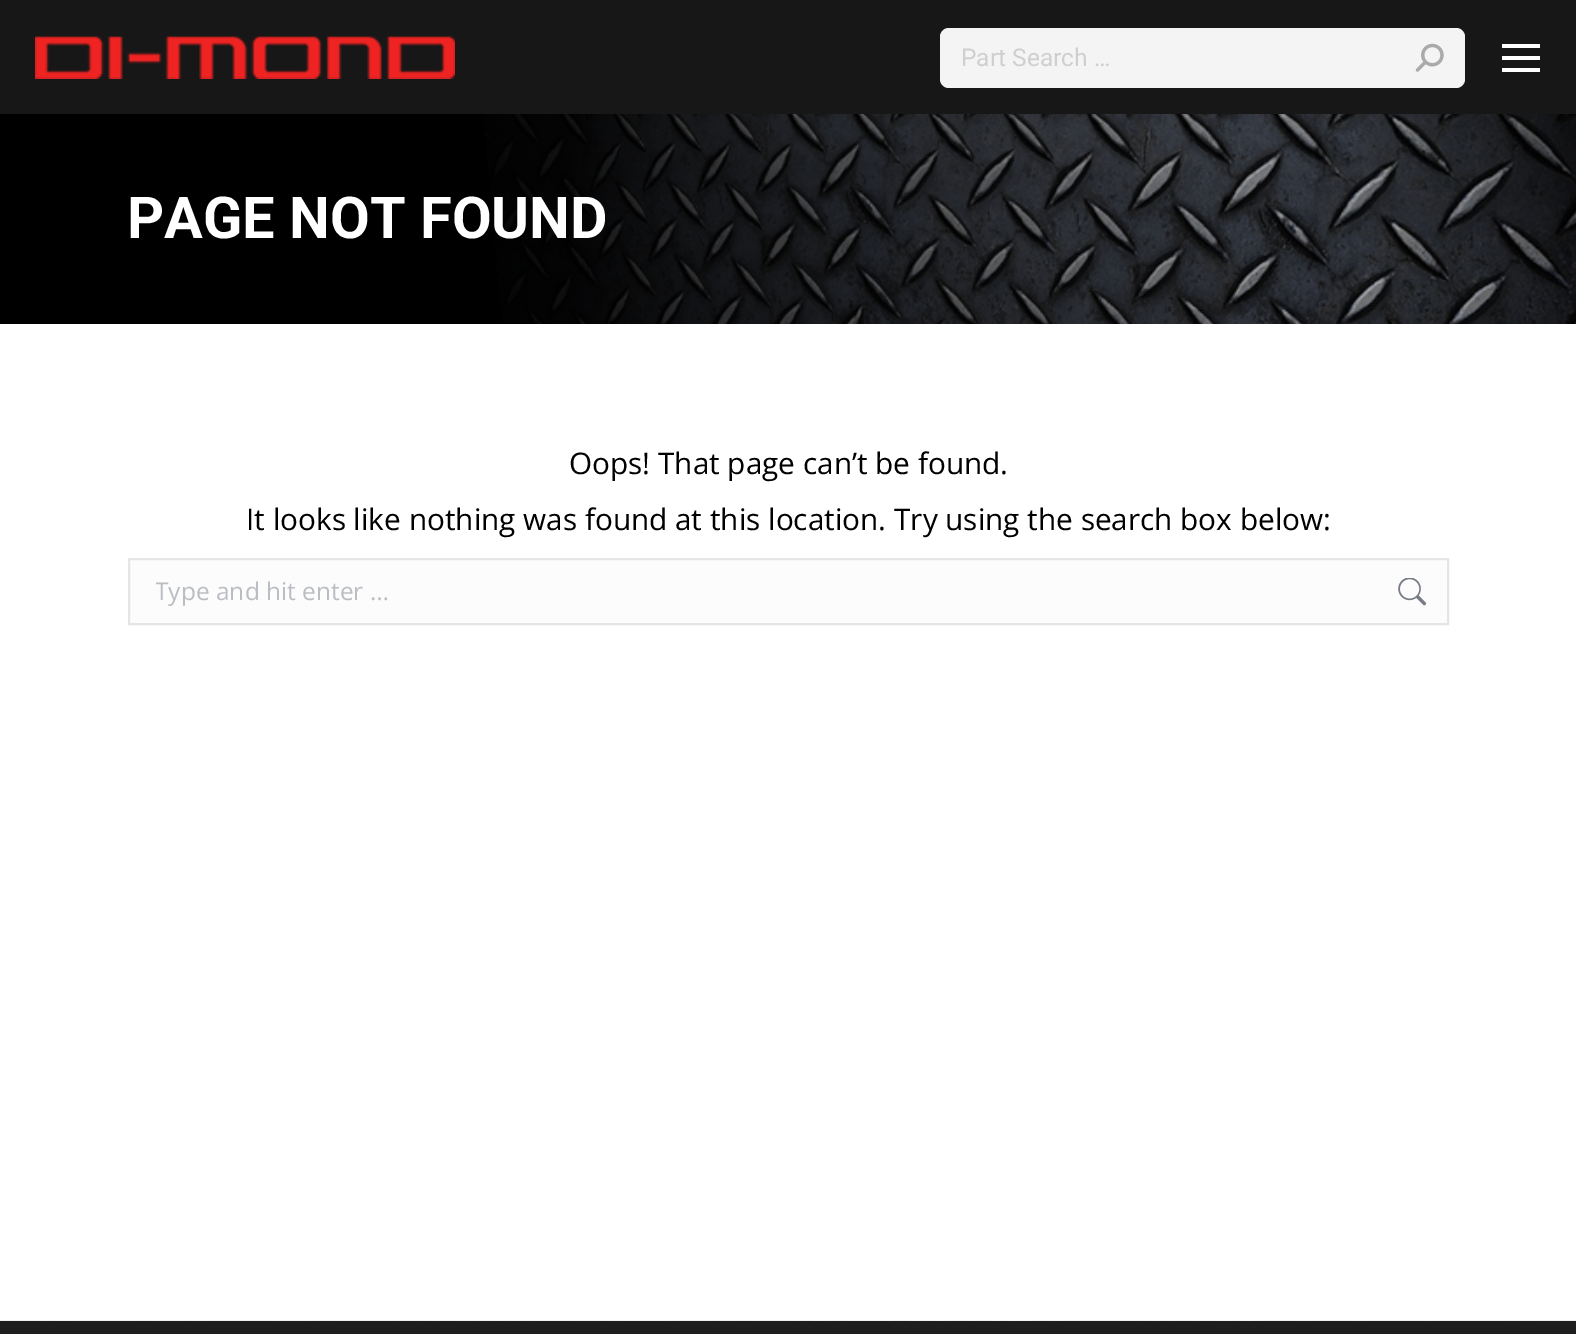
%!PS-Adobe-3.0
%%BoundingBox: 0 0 1576 1334
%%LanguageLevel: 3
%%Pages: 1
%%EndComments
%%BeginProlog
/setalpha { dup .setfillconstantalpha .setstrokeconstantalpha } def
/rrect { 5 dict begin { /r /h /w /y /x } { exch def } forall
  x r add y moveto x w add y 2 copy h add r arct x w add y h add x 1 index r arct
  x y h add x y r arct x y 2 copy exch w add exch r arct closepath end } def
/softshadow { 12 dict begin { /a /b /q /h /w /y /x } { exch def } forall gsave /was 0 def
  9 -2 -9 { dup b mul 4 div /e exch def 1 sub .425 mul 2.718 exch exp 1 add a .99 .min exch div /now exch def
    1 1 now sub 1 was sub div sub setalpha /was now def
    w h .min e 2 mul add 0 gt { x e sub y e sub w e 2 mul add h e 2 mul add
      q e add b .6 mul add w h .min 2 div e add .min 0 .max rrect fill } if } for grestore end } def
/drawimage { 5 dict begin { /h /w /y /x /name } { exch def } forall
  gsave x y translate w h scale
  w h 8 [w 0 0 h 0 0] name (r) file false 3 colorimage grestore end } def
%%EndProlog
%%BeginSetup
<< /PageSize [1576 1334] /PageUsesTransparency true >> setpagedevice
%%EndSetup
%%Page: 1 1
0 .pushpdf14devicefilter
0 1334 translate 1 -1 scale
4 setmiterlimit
1 setgray
0 0 1576 1334 rectfill
0 setgray
0 114 1576 210 rectfill
(images/3.raw) 482 114 1094 210 drawimage
-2 -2 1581 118 0 13 0.07 softshadow
0.094 0.09 0.09 setrgbcolor
0 0 1576 114 rectfill
(images/1.raw) 35 36 420 43 drawimage
0.957 setgray
940 28 525 60 9 rrect fill
(images/2.raw) 1415 43 29 29 drawimage
1 setgray
1502 44 38 4 rectfill
1502 56 38 4 rectfill
1502 68 38 4 rectfill
0.988 setgray
newpath 129 559 moveto 1448 559 lineto 1448 624 lineto 129 624 lineto closepath gsave fill grestore
0.894 0.898 0.906 setrgbcolor
2 setlinewidth
stroke
(images/4.raw) 1398 578 28 28 drawimage
(images/5.raw) 0 1320 1576 1 drawimage
0.118 setgray
0 1321 1576 13 rectfill
/Roboto-Regular [24.5 0 0 -24.5 0 0] selectfont
0.812 setgray
961 66 moveto (Part Search …) show
/Roboto-Bold [57.75 0 0 -57.75 0 0] selectfont
1 setgray
127 238 moveto (PAGE NOT FOUND) show
/OpenSans-Regular [29.75 0 0 -29.75 0 0] selectfont
0 setgray
569 474 moveto (Oops! That page can’t be found.) show
246 530 moveto (It looks like nothing was found at this location. Try using the search box below:) show
gsave
156 574 1239 33 rectclip
/OpenSans-Regular [24.5 0 0 -24.5 0 0] selectfont
0.729 0.741 0.757 setrgbcolor
155 600 moveto (Type and hit enter …) show
grestore
.poppdf14devicefilter showpage
%%EOF
